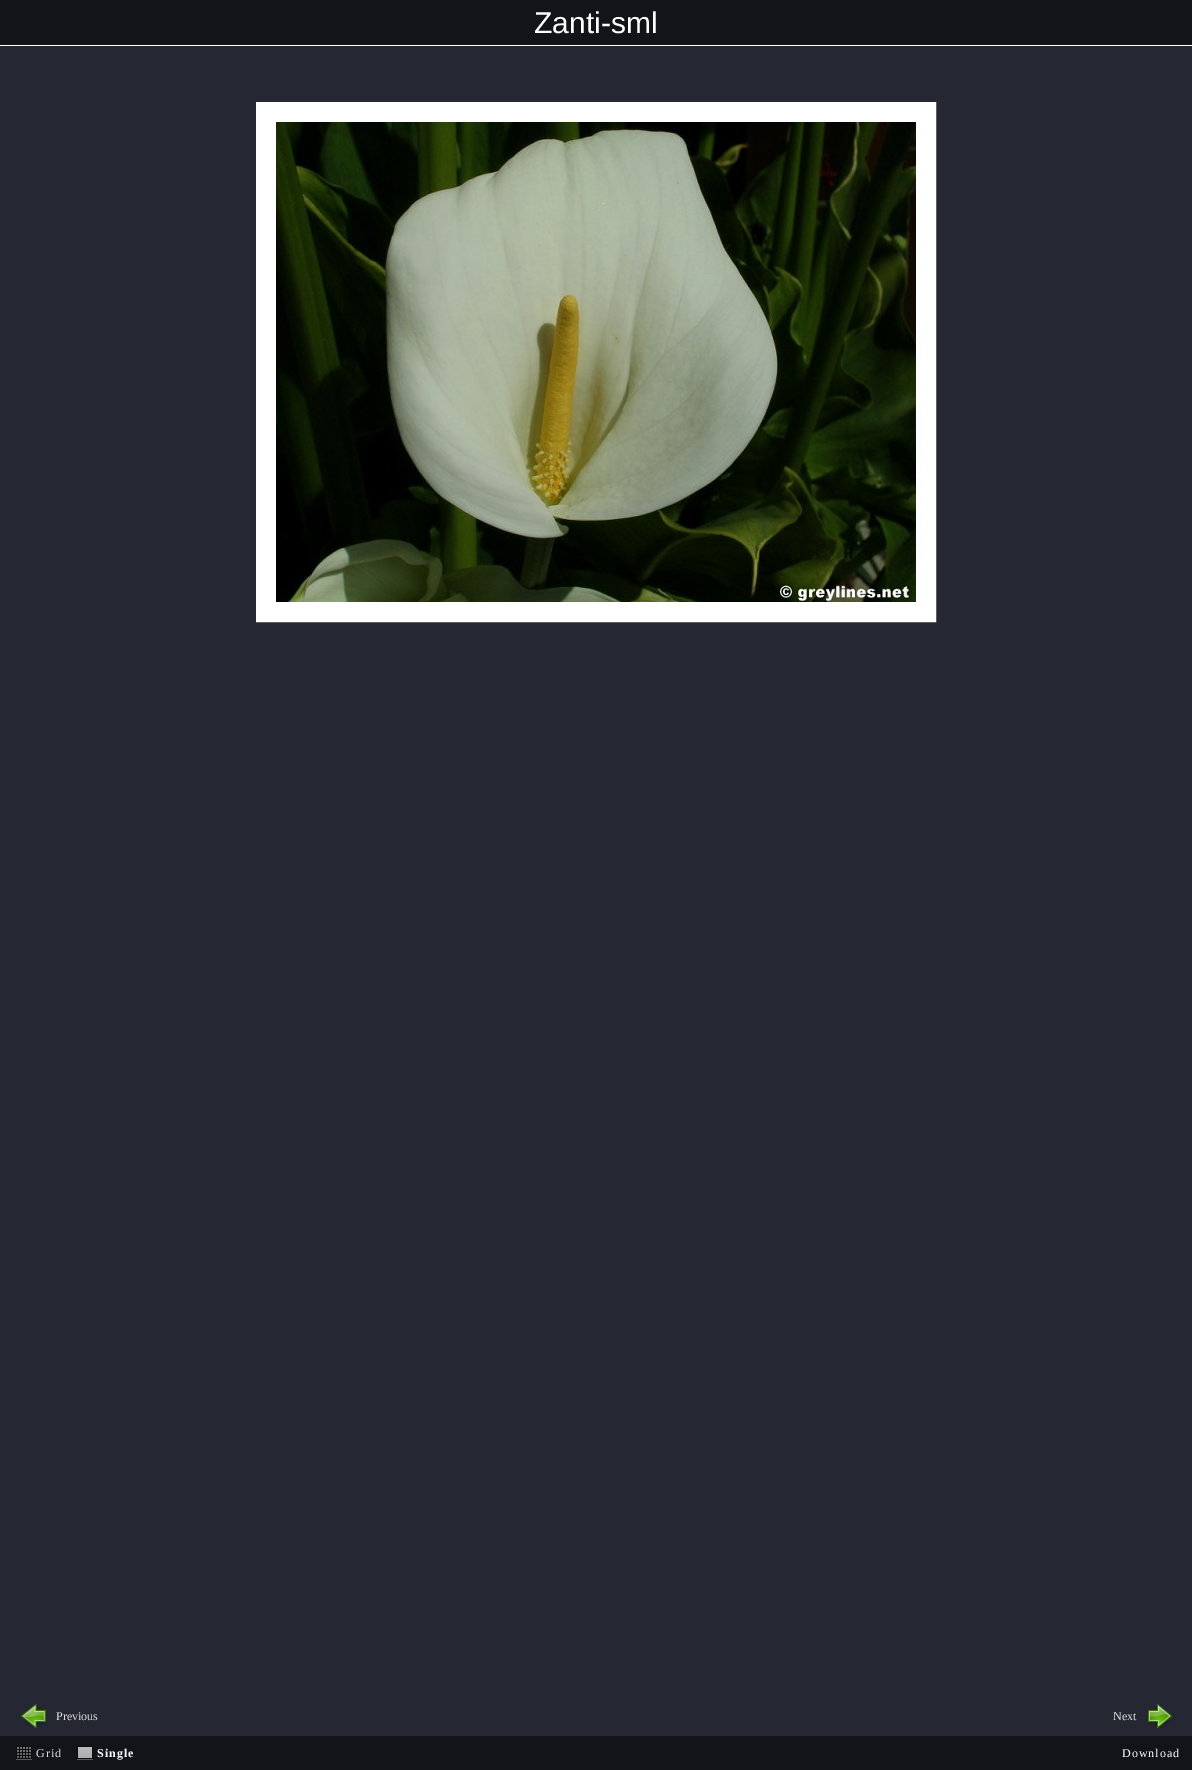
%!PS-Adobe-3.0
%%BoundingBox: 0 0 1192 1770
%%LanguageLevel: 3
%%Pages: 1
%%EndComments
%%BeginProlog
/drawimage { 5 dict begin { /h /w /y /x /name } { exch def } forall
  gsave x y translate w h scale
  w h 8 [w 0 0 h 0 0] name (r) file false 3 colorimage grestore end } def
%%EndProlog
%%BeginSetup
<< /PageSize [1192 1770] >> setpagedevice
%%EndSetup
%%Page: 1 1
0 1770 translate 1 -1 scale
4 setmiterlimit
0.145 0.157 0.2 setrgbcolor
0 0 1192 1770 rectfill
0.075 0.078 0.102 setrgbcolor
0 0 1192 45 rectfill
1 setgray
0 45 1192 1 rectfill
20 setlinewidth
266 112 660 500 rectstroke
(images/1.raw) 276 122 640 480 drawimage
(images/2.raw) 21 1704 25 24 drawimage
(images/3.raw) 1148 1704 24 24 drawimage
0.075 0.078 0.102 setrgbcolor
0 1736 1192 34 rectfill
(images/4.raw) 16 1746 16 14 drawimage
(images/5.raw) 77 1746 16 14 drawimage
/LiberationSans-Regular [30 0 0 -30 0 0] selectfont
1 setgray
534 33 moveto (Zanti-sml) show
/LiberationSerif-Regular [12 0 0 -12 0 0] selectfont
0.867 setgray
56 1720 moveto (Previous) show
1113 1720 moveto (Next) show
36 1757 moveto 1 0 (Grid) ashow
/LiberationSerif-Bold [12 0 0 -12 0 0] selectfont
1 setgray
97 1757 moveto 1 0 (Single) ashow
/LiberationSerif-Regular [12 0 0 -12 0 0] selectfont
1122 1757 moveto 1 0 (Download) ashow
showpage
%%EOF
